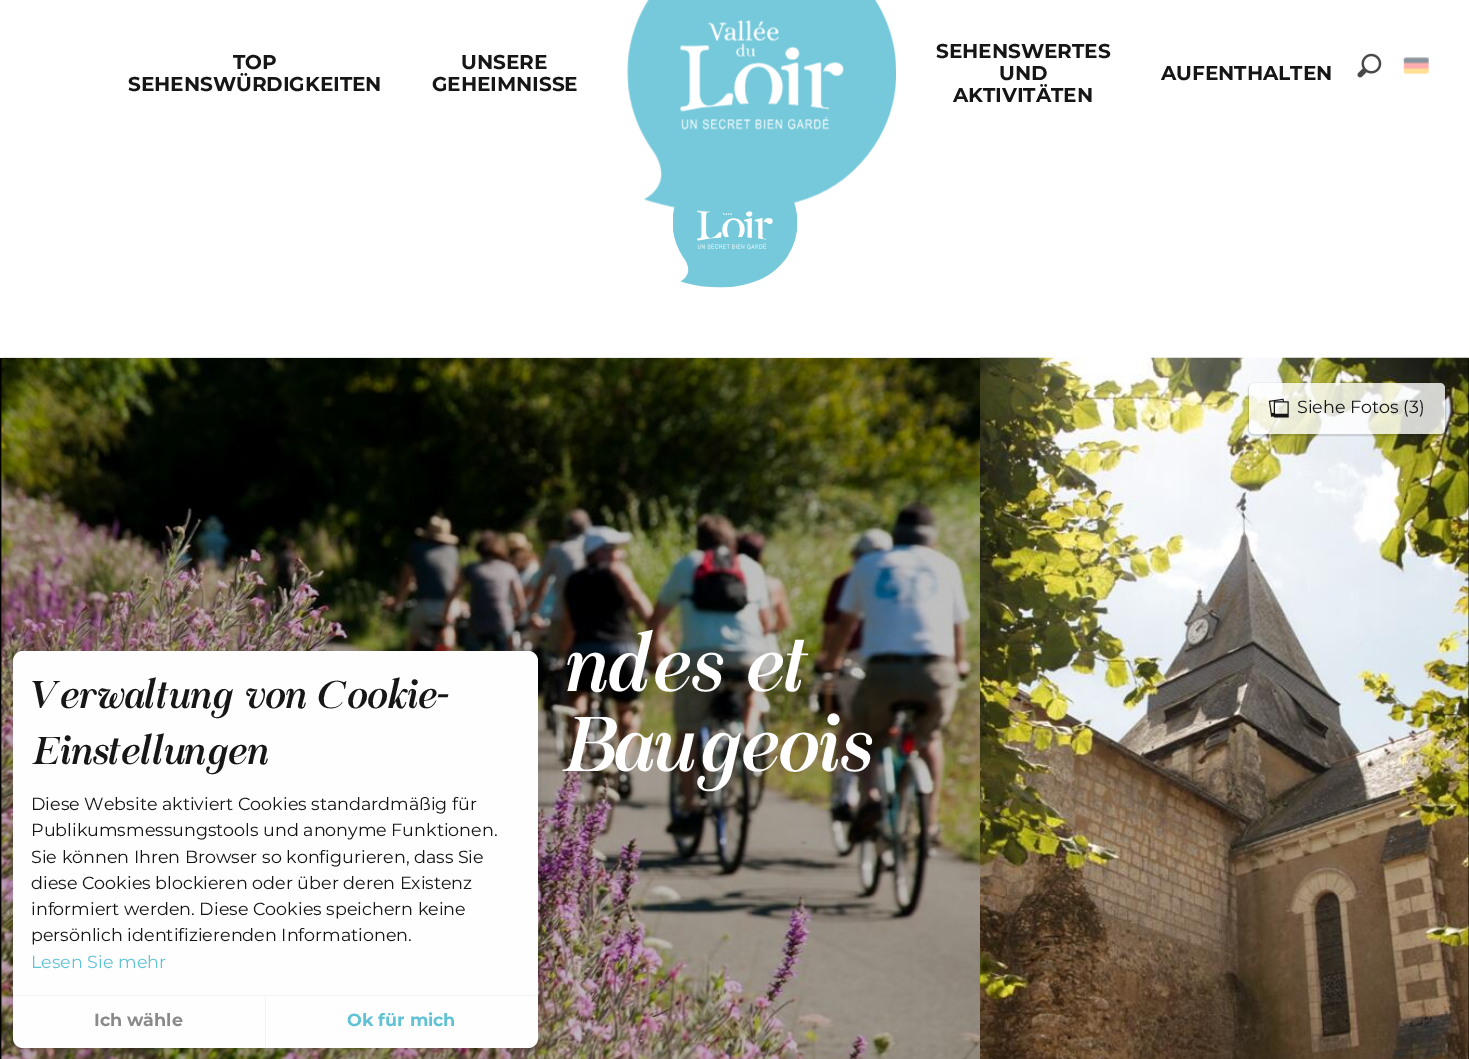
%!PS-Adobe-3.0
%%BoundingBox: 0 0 1469 1059
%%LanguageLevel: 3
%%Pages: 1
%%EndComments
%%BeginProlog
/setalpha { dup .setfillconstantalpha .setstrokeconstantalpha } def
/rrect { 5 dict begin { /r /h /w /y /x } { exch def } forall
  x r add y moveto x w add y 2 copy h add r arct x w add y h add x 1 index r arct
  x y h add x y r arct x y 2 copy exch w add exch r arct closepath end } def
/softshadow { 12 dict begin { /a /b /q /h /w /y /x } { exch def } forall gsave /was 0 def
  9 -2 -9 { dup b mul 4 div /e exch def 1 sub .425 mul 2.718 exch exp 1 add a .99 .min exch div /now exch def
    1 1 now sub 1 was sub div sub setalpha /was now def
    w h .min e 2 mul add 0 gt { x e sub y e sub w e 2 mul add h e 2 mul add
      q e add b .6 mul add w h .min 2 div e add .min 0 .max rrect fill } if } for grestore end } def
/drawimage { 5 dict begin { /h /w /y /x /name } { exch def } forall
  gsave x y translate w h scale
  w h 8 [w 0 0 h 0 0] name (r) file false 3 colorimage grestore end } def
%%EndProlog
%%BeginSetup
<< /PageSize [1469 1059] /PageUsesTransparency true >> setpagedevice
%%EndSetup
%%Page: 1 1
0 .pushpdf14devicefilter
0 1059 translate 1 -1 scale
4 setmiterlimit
1 setgray
0 0 1469 1059 rectfill
(images/4.raw) 673 202 125 86 drawimage
(images/1.raw) 627 0 269 213 drawimage
(images/2.raw) 1357 53 25 25 drawimage
(images/3.raw) 1403 57 26 17 drawimage
0 setgray
0 358 1469 701 rectfill
(images/5.raw) 1 357 979 702 drawimage
(images/6.raw) 980 357 489 702 drawimage
gsave
newpath 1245 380 moveto 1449 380 lineto 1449 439 lineto 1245 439 lineto closepath 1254 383 moveto 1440 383 lineto 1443 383 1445 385 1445 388 curveto 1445 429 lineto 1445 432 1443 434 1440 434 curveto 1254 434 lineto 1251 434 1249 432 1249 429 curveto 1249 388 lineto 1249 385 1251 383 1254 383 curveto closepath eoclip newpath
1248 383 198 53 6 0.5 0.14 softshadow
grestore
0.8 setalpha
1 setgray
1249 383 196 51 5 rrect fill
1 setalpha
(images/7.raw) 1268 398 21 20 drawimage
0.086 setgray
13 656 525 397 10 15 0.15 softshadow
0.996 setgray
13 651 525 397 10 rrect fill
0.953 setgray
13 995 525 1 rectfill
265 996 1 52 rectfill
/Montserrat-Bold [20 0 0 -20 0 0] selectfont
0.086 setgray
233 69 moveto (TOP) show
128 91 moveto (SEHENSWÜRDIGKEITEN) show
461 69 moveto (UNSERE) show
432 91 moveto (GEHEIMNISSE) show
936 58 moveto (SEHENSWERTES) show
999 80 moveto (UND) show
953 102 moveto (AKTIVITÄTEN) show
1161 80 moveto (AUFENTHALTEN) show
/Montserrat-Regular [17.5 0 0 -17.5 0 0] selectfont
1297 413 moveto (Siehe Fotos \(3\)) show
/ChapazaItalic-Regular [80 0 0 -80 0 0] selectfont
1 setgray
565 691 moveto (ndes et) show
560 771 moveto (Baugeois) show
/ChapazaItalic-Regular [40 0 0 -40 0 0] selectfont
0.086 setgray
31 708 moveto (Verwaltung von Cookie-) show
31 764 moveto (Einstellungen) show
/Montserrat-Regular [17.5 0 0 -17.5 0 0] selectfont
31 810 moveto (Diese Website aktiviert Cookies standardmäßig für) show
31 836 moveto (Publikumsmessungstools und anonyme Funktionen.) show
31 863 moveto (Sie können Ihren Browser so konfigurieren, dass Sie) show
31 889 moveto (diese Cookies blockieren oder über deren Existenz) show
31 915 moveto (informiert werden. Diese Cookies speichern keine) show
31 941 moveto (persönlich identifizierenden Informationen.) show
0.373 0.761 0.835 setrgbcolor
31 968 moveto (Lesen Sie mehr) show
/Montserrat-Bold [17.5 0 0 -17.5 0 0] selectfont
0.541 setgray
94 1026 moveto (Ich wähle) show
0.373 0.761 0.835 setrgbcolor
347 1026 moveto (Ok für mich) show
.poppdf14devicefilter showpage
%%EOF
